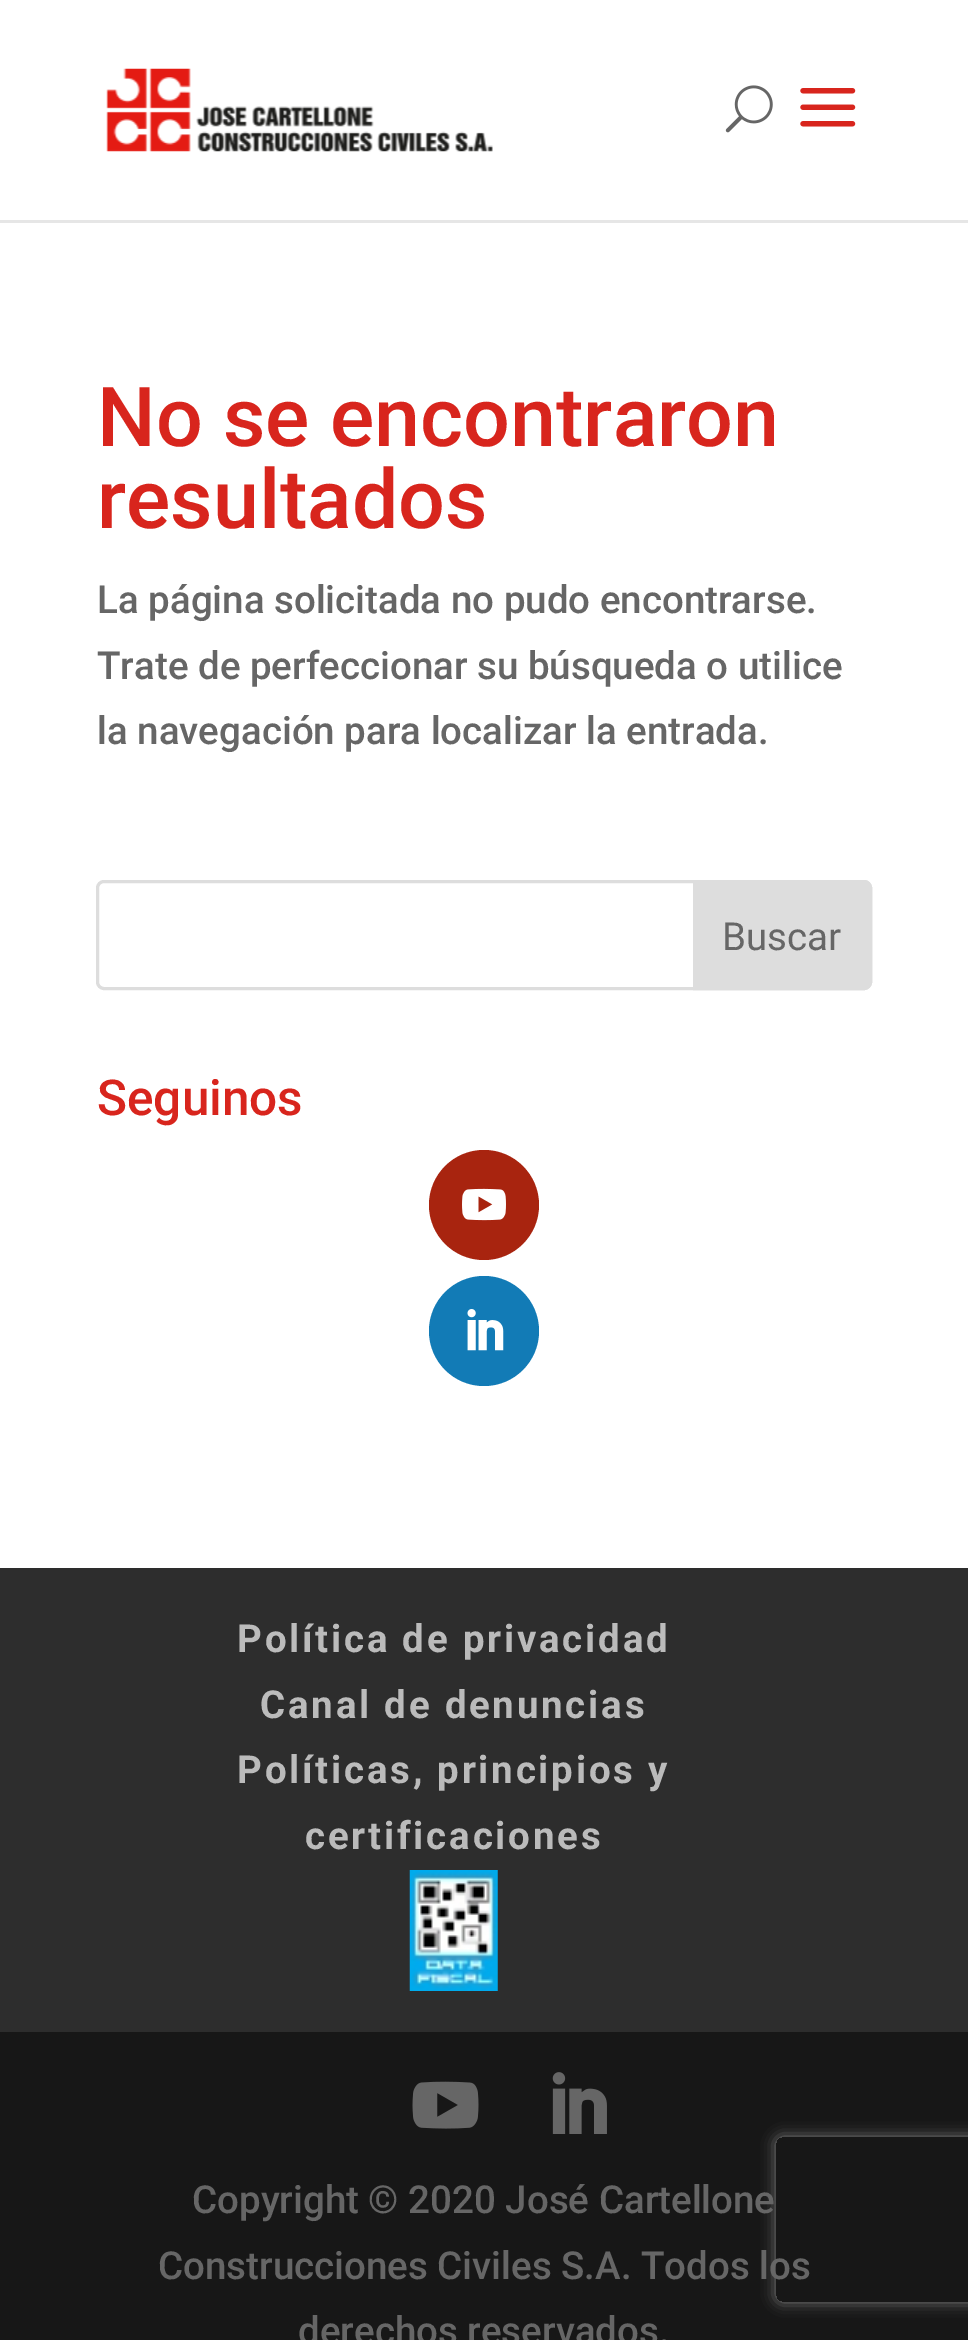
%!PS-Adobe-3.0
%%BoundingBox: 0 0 968 2340
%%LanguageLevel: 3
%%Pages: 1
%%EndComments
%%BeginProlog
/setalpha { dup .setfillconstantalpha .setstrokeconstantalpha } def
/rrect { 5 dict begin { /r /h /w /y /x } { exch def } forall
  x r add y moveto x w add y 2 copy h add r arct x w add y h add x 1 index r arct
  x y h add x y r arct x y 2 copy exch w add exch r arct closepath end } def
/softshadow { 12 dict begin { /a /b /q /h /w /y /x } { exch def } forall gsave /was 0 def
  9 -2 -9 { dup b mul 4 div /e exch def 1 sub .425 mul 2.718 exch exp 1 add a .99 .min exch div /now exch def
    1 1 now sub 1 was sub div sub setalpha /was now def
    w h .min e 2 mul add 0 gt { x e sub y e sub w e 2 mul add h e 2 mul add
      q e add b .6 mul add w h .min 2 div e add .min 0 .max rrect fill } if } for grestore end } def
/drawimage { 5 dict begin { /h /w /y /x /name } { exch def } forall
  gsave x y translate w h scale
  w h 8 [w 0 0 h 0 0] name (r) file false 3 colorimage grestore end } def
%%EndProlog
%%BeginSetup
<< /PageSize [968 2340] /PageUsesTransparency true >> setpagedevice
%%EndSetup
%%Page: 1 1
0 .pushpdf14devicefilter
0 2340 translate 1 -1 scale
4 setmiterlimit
1 setgray
0 0 968 2340 rectfill
0.902 setgray
0 220 968 3 rectfill
(images/1.raw) 106 68 387 84 drawimage
(images/2.raw) 725 85 48 48 drawimage
(images/3.raw) 800 88 56 39 drawimage
0.867 setgray
3 setlinewidth
97.5 881.5 773 107 6.5 rrect stroke
newpath 694.5 881.5 moveto 864 881.5 lineto 867.5 881.5 870.5 884.5 870.5 888 curveto 870.5 982 lineto 870.5 985.5 867.5 988.5 864 988.5 curveto 694.5 988.5 lineto closepath gsave fill grestore
stroke
0.659 0.141 0.059 setrgbcolor
newpath 484 1205 55 0 360 arc closepath fill
(images/4.raw) 462 1188 44 33 drawimage
0.071 0.482 0.714 setrgbcolor
newpath 484 1331 55 0 360 arc closepath fill
(images/5.raw) 467 1309 37 42 drawimage
0.176 setgray
0 1568 968 464 rectfill
(images/6.raw) 409 1870 89 121 drawimage
0.09 setgray
0 2032 968 308 rectfill
(images/7.raw) 412 2081 67 48 drawimage
(images/8.raw) 552 2072 55 62 drawimage
gsave
newpath 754 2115 moveto 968 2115 lineto 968 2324 lineto 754 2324 lineto closepath 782 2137 moveto 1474 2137 lineto 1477.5 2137 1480 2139.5 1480 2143 curveto 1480 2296 lineto 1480 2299.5 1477.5 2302 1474 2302 curveto 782 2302 lineto 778.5 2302 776 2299.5 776 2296 curveto 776 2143 lineto 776 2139.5 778.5 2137 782 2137 curveto closepath eoclip newpath
0.502 setgray
776 2137 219 165 6 7 1 softshadow
grestore
/Roboto-Medium [82.5 0 0 -82.5 0 0] selectfont
0.847 0.145 0.114 setrgbcolor
97 446 moveto (No se encontraron) show
97 528 moveto (resultados) show
/Roboto-Medium [38.5 0 0 -38.5 0 0] selectfont
0.4 setgray
97 613 moveto (La página solicitada no pudo encontrarse.) show
97 679 moveto (Trate de perfeccionar su búsqueda o utilice) show
97 744 moveto (la navegación para localizar la entrada.) show
/Roboto-Regular [38.5 0 0 -38.5 0 0] selectfont
722 950 moveto (Buscar) show
/Roboto-Medium [49.5 0 0 -49.5 0 0] selectfont
0.847 0.145 0.114 setrgbcolor
97 1115 moveto (Seguinos) show
/Roboto-Bold [38.5 0 0 -38.5 0 0] selectfont
0.733 setgray
237 1652 moveto 2.75 0 (Política de privacidad) ashow
260 1718 moveto 2.75 0 (Canal de denuncias) ashow
237 1783 moveto 2.75 0 (Políticas, principios y) ashow
305 1849 moveto 2.75 0 (certificaciones) ashow
/Roboto-Medium [38.5 0 0 -38.5 0 0] selectfont
0.4 setgray
192 2213 moveto (Copyright © 2020 José Cartellone) show
158 2279 moveto (Construcciones Civiles S.A. Todos los) show
298 2344 moveto (derechos reservados.) show
.poppdf14devicefilter showpage
%%EOF
